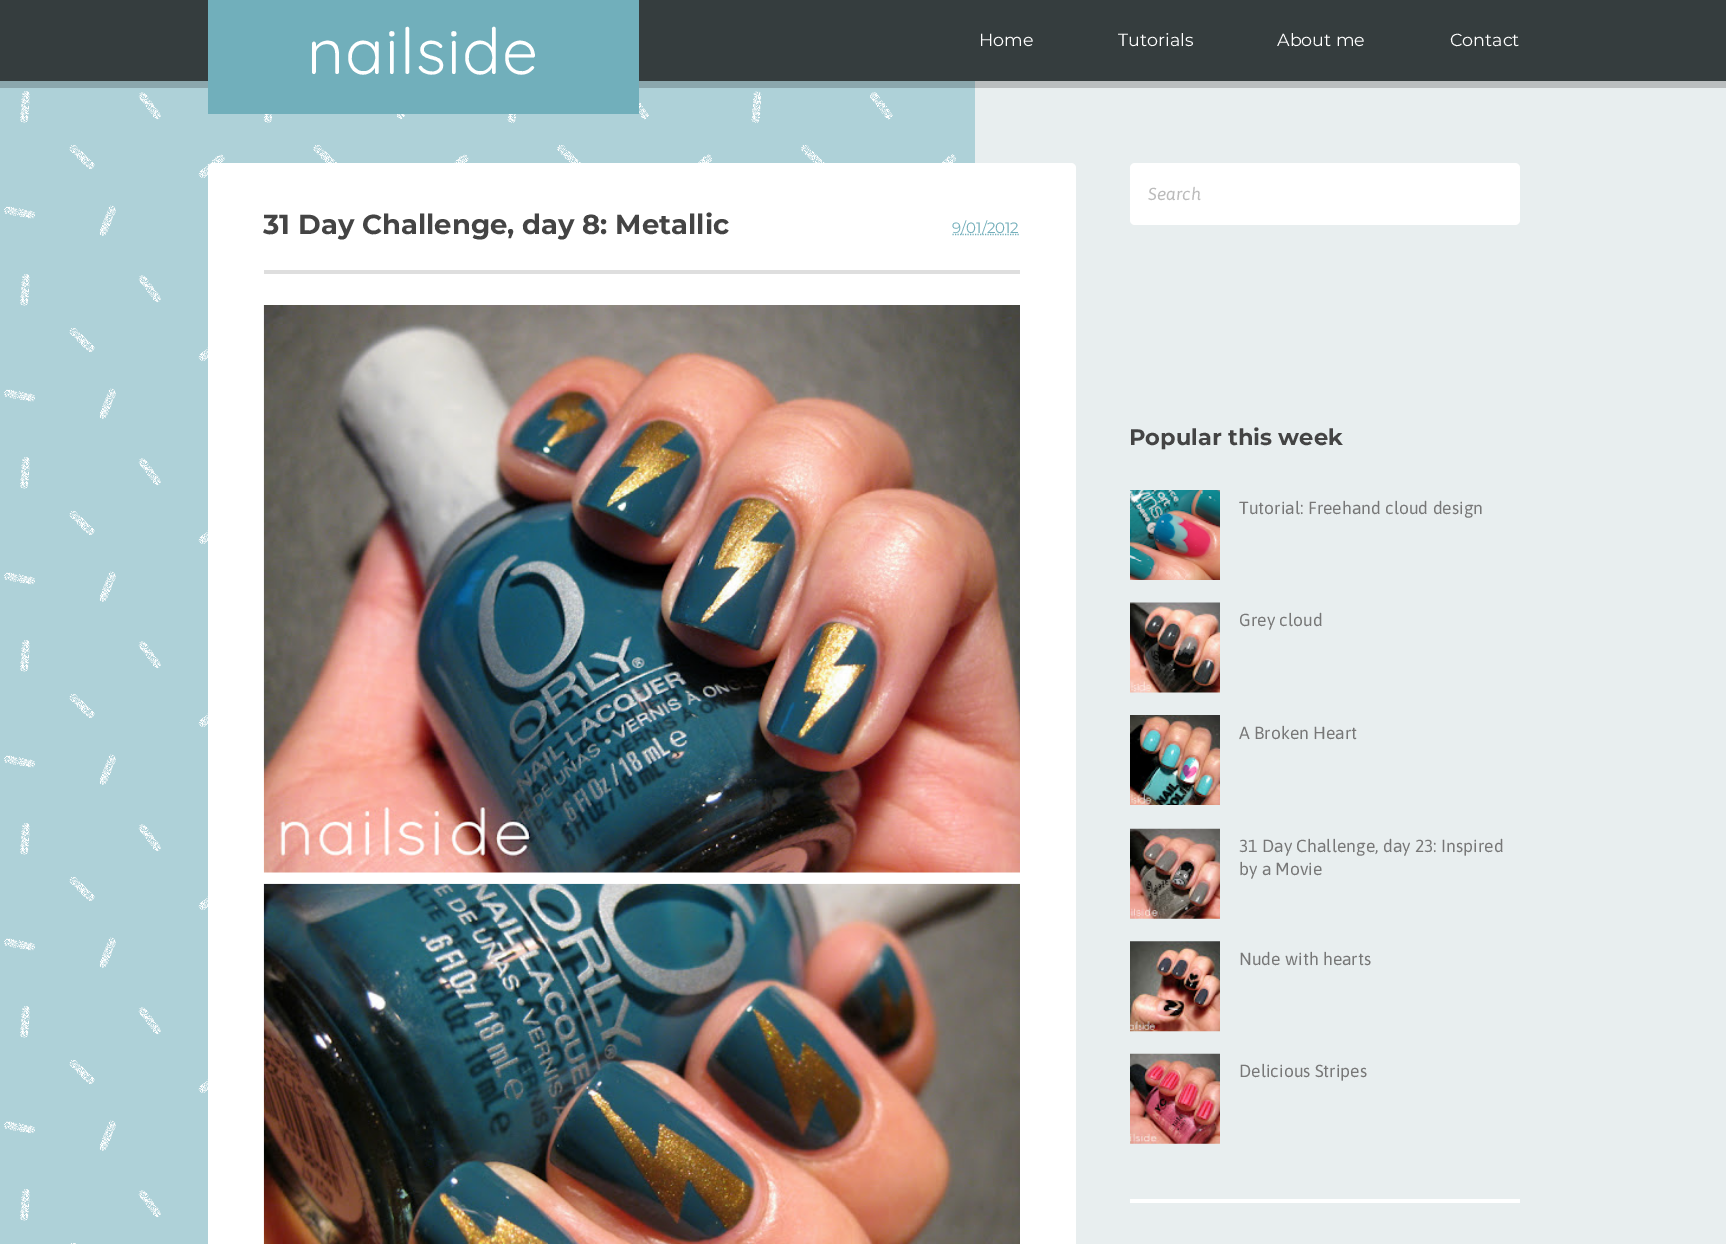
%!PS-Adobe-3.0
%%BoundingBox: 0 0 1726 1244
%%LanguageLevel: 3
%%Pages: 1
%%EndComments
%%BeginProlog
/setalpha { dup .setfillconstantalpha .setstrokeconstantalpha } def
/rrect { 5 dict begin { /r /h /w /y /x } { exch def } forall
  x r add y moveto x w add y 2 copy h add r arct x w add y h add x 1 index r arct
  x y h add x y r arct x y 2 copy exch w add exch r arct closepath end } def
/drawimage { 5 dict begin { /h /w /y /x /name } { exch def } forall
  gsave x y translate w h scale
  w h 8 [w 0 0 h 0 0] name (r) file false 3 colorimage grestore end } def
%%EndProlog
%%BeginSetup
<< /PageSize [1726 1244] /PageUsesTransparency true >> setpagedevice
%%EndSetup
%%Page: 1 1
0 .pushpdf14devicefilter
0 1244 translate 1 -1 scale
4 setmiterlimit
0.91 0.933 0.937 setrgbcolor
0 0 1726 1244 rectfill
(images/1.raw) 0 81 975 1163 drawimage
0.2 setalpha
0 setgray
0 81 1726 7 rectfill
1 setalpha
0.208 0.239 0.243 setrgbcolor
0 0 1726 81 rectfill
0.443 0.686 0.733 setrgbcolor
208 0 431 114 rectfill
1 setgray
208 163 868 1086 5 rrect fill
0.451 0.682 0.729 setrgbcolor
1.2 setlinewidth
[1.25 1.25] 0 setdash
newpath 952.5 234.5 moveto 1019.5 234.5 lineto stroke
0.871 setgray
264 270 756 4 rectfill
(images/2.raw) 263 305 757 568 drawimage
(images/3.raw) 263 883 757 361 drawimage
1 setgray
1130 163 390 62 5 rrect fill
1130 1199 390 4 rectfill
(images/4.raw) 1130 490 90 90 drawimage
(images/5.raw) 1130 602 90 91 drawimage
(images/6.raw) 1130 715 90 90 drawimage
(images/7.raw) 1130 828 90 91 drawimage
(images/8.raw) 1130 941 90 91 drawimage
(images/9.raw) 1130 1053 90 91 drawimage
/Quicksand-Light [64 0 0 -64 0 0] selectfont
307 74 moveto 1.25 0 (nailside) ashow
/Montserrat-Regular [17.5 0 0 -17.5 0 0] selectfont
979 46 moveto (Home) show
1118 46 moveto (Tutorials) show
1277 46 moveto (About me) show
1450 46 moveto (Contact) show
/Montserrat-Bold [27.5 0 0 -27.5 0 0] selectfont
0.267 setgray
263 234 moveto (31 Day Challenge, day 8: Metallic) show
/Montserrat-Regular [15 0 0 -15 0 0] selectfont
0.451 0.682 0.729 setrgbcolor
952 233 moveto (9/01/2012) show
/Asap-Italic [17.5 0 0 -17.5 0 0] selectfont
0.733 setgray
1148 200 moveto (Search) show
/Montserrat-Bold [22.5 0 0 -22.5 0 0] selectfont
0.267 setgray
1129 445 moveto (Popular this week) show
/Asap-Regular [17.5 0 0 -17.5 0 0] selectfont
0.467 setgray
1239 514 moveto (Tutorial: Freehand cloud design) show
1239 626 moveto (Grey cloud) show
1239 739 moveto (A Broken Heart) show
1239 852 moveto (31 Day Challenge, day 23: Inspired) show
1239 875 moveto (by a Movie) show
1239 965 moveto (Nude with hearts) show
1239 1077 moveto (Delicious Stripes) show
.poppdf14devicefilter showpage
%%EOF
